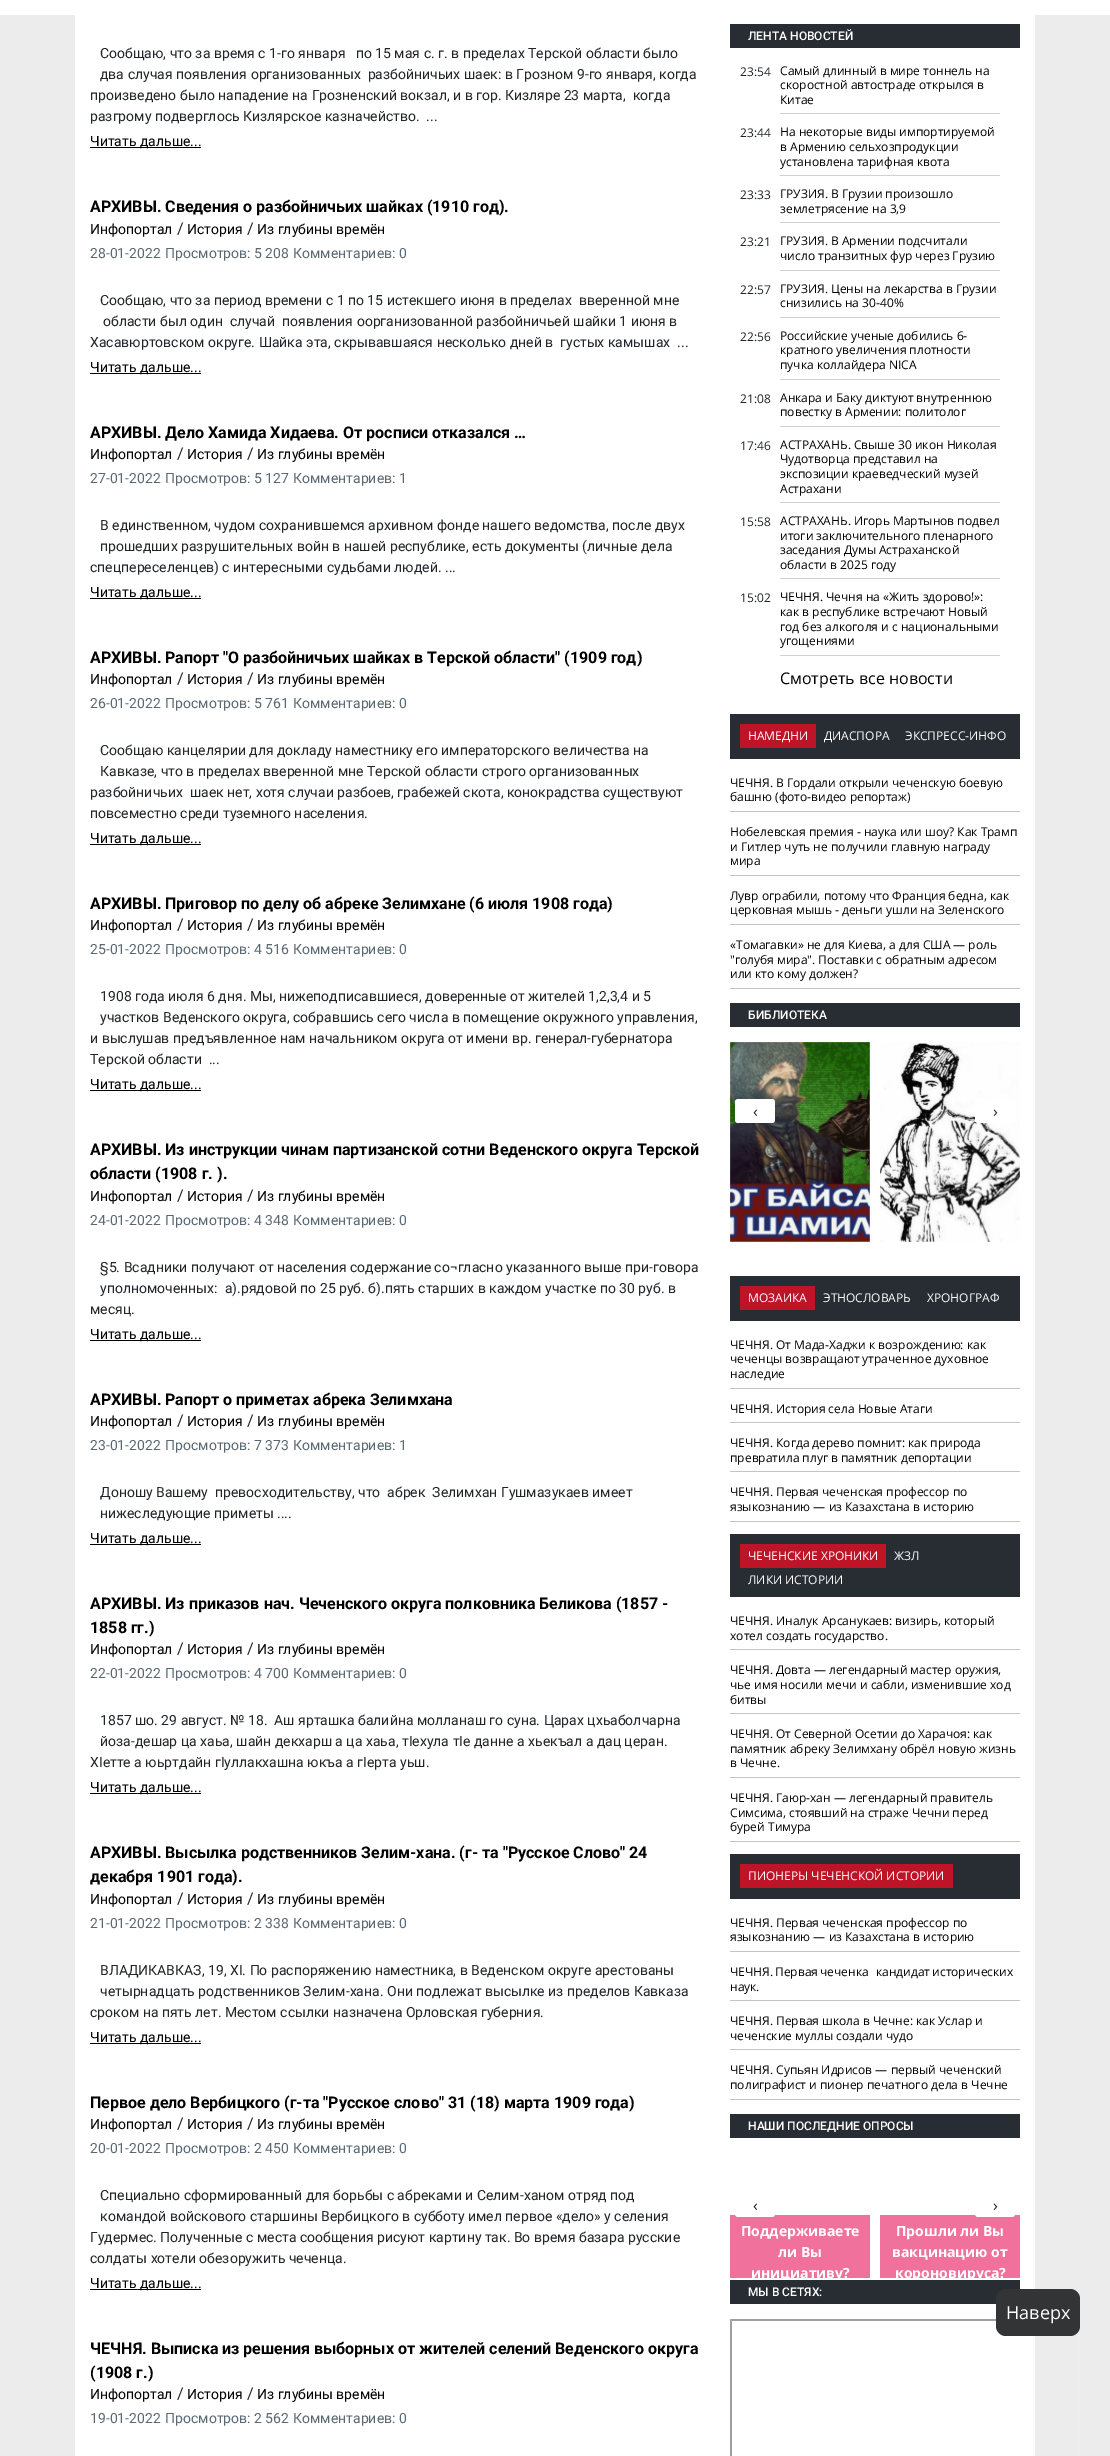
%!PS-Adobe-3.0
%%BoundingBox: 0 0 1110 2456
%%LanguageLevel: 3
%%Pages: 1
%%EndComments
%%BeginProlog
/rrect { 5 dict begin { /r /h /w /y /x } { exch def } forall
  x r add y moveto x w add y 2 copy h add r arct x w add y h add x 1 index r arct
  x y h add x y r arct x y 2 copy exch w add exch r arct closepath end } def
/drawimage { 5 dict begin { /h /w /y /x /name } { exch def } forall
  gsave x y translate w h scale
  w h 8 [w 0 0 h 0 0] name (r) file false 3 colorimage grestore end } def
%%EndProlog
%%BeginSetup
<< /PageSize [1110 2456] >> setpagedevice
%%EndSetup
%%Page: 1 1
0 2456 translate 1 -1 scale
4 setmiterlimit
0.925 setgray
0 0 1110 2456 rectfill
1 setgray
0 0 1110 15 rectfill
75 15 960 2441 rectfill
0 setgray
90 147 111 1 rectfill
90 373 111 1 rectfill
90 598 111 1 rectfill
90 844 111 1 rectfill
90 1090 111 1 rectfill
90 1340 111 1 rectfill
90 1544 111 1 rectfill
90 1793 111 1 rectfill
90 2043 111 1 rectfill
90 2289 111 1 rectfill
0.153 0.176 0.2 setrgbcolor
730 24 290 24 rectfill
0.804 0.82 0.831 setrgbcolor
780 113 220 1 rectfill
780 175 220 1 rectfill
780 222 220 1 rectfill
780 270 220 1 rectfill
780 317 220 1 rectfill
780 379 220 1 rectfill
780 426 220 1 rectfill
780 502 220 1 rectfill
780 578 220 1 rectfill
780 655 220 1 rectfill
0.153 0.176 0.2 setrgbcolor
730 714 290 45 rectfill
0.741 0.078 0.153 setrgbcolor
740 724 76 24 rectfill
0.769 setgray
730 811 290 1 rectfill
730 875 290 1 rectfill
730 924 290 1 rectfill
730 988 290 1 rectfill
0.153 0.176 0.2 setrgbcolor
730 1003 290 24 rectfill
(images/1.raw) 730 1042 140 200 drawimage
(images/2.raw) 880 1042 140 200 drawimage
1 setgray
735 1099 40 24 3 rrect fill
975 1099 40 24 3 rrect fill
0.153 0.176 0.2 setrgbcolor
730 1276 290 45 rectfill
0.741 0.078 0.153 setrgbcolor
740 1286 75 24 rectfill
0.769 setgray
730 1388 290 1 rectfill
730 1422 290 1 rectfill
730 1471 290 1 rectfill
730 1521 290 1 rectfill
0.153 0.176 0.2 setrgbcolor
730 1534 290 63 rectfill
0.741 0.078 0.153 setrgbcolor
740 1544 146 24 rectfill
0.769 setgray
730 1649 290 1 rectfill
730 1713 290 1 rectfill
730 1777 290 1 rectfill
730 1841 290 1 rectfill
0.153 0.176 0.2 setrgbcolor
730 1854 290 45 rectfill
0.741 0.078 0.153 setrgbcolor
740 1864 213 24 rectfill
0.769 setgray
730 1951 290 1 rectfill
730 2000 290 1 rectfill
730 2049 290 1 rectfill
730 2099 290 1 rectfill
0.153 0.176 0.2 setrgbcolor
730 2114 290 24 rectfill
0.945 0.443 0.616 setrgbcolor
730 2215 140 63 rectfill
1 setgray
735 2193 40 24 3 rrect fill
0.945 0.443 0.616 setrgbcolor
880 2215 140 63 rectfill
1 setgray
975 2193 40 24 3 rrect fill
0.153 0.176 0.2 setrgbcolor
730 2280 290 24 rectfill
0.624 setgray
newpath 730 2319 moveto 1080 2319 lineto 1078 2321 lineto 732 2321 lineto closepath fill
newpath 730 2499 moveto 730 2319 lineto 732 2321 lineto 732 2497 lineto closepath fill
0.933 setgray
newpath 1080 2319 moveto 1080 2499 lineto 1078 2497 lineto 1078 2321 lineto closepath fill
0.2 0.204 0.212 setrgbcolor
996 2289 84 47 10 rrect fill
/Roboto-Regular [14 0 0 -14 0 0] selectfont
0.129 0.145 0.161 setrgbcolor
100 58 moveto (Сообщаю, что за время с 1-го января   по 15 мая с. г. в пределах Терской области было) show
100 79 moveto (два случая появления организованных  разбойничьих шаек: в Грозном 9-го января, когда) show
90 100 moveto (произведено было нападение на Грозненский вокзал, и в гор. Кизляре 23 марта,  когда) show
90 121 moveto (разгрому подверглось Кизлярское казначейство.  ...) show
0 setgray
90 146 moveto (Читать дальше...) show
/Roboto-Bold [16 0 0 -16 0 0] selectfont
90 212 moveto (АРХИВЫ. Сведения о разбойничьих шайках \(1910 год\).) show
/Roboto-Regular [14 0 0 -14 0 0] selectfont
90 234 moveto (Инфопортал) show
/Roboto-Regular [16 0 0 -16 0 0] selectfont
0.129 0.145 0.161 setrgbcolor
177 234 moveto (/) show
/Roboto-Regular [14 0 0 -14 0 0] selectfont
0 setgray
187 234 moveto (История) show
/Roboto-Regular [16 0 0 -16 0 0] selectfont
0.129 0.145 0.161 setrgbcolor
247 234 moveto (/) show
/Roboto-Regular [14 0 0 -14 0 0] selectfont
0 setgray
257 234 moveto (Из глубины времён) show
0.353 0.408 0.447 setrgbcolor
90 258 moveto (28-01-2022) show
165 258 moveto (Просмотров: 5 208) show
293 258 moveto (Комментариев: 0) show
0.129 0.145 0.161 setrgbcolor
100 305 moveto (Сообщаю, что за период времени с 1 по 15 истекшего июня в пределах  вверенной мне) show
103 326 moveto (области был один  случай  появления oорганизованной разбойничьей шайки 1 июня в) show
90 347 moveto (Хасавюртовском округе. Шайка эта, скрывавшаяся несколько дней в  густых камышах  ...) show
0 setgray
90 372 moveto (Читать дальше...) show
/Roboto-Bold [16 0 0 -16 0 0] selectfont
90 438 moveto (АРХИВЫ. Дело Хамида Хидаева. От росписи отказался …) show
/Roboto-Regular [14 0 0 -14 0 0] selectfont
90 459 moveto (Инфопортал) show
/Roboto-Regular [16 0 0 -16 0 0] selectfont
0.129 0.145 0.161 setrgbcolor
177 459 moveto (/) show
/Roboto-Regular [14 0 0 -14 0 0] selectfont
0 setgray
187 459 moveto (История) show
/Roboto-Regular [16 0 0 -16 0 0] selectfont
0.129 0.145 0.161 setrgbcolor
247 459 moveto (/) show
/Roboto-Regular [14 0 0 -14 0 0] selectfont
0 setgray
257 459 moveto (Из глубины времён) show
0.353 0.408 0.447 setrgbcolor
90 483 moveto (27-01-2022) show
165 483 moveto (Просмотров: 5 127) show
293 483 moveto (Комментариев: 1) show
0.129 0.145 0.161 setrgbcolor
100 530 moveto (В единственном, чудом сохранившемся архивном фонде нашего ведомства, после двух) show
100 551 moveto (прошедших разрушительных войн в нашей республике, есть документы \(личные дела) show
90 572 moveto (спецпереселенцев\) с интересными судьбами людей. ...) show
0 setgray
90 597 moveto (Читать дальше...) show
/Roboto-Bold [16 0 0 -16 0 0] selectfont
90 663 moveto (АРХИВЫ. Рапорт "О разбойничьих шайках в Терской области" \(1909 год\)) show
/Roboto-Regular [14 0 0 -14 0 0] selectfont
90 684 moveto (Инфопортал) show
/Roboto-Regular [16 0 0 -16 0 0] selectfont
0.129 0.145 0.161 setrgbcolor
177 684 moveto (/) show
/Roboto-Regular [14 0 0 -14 0 0] selectfont
0 setgray
187 684 moveto (История) show
/Roboto-Regular [16 0 0 -16 0 0] selectfont
0.129 0.145 0.161 setrgbcolor
247 684 moveto (/) show
/Roboto-Regular [14 0 0 -14 0 0] selectfont
0 setgray
257 684 moveto (Из глубины времён) show
0.353 0.408 0.447 setrgbcolor
90 708 moveto (26-01-2022) show
165 708 moveto (Просмотров: 5 761) show
293 708 moveto (Комментариев: 0) show
0.129 0.145 0.161 setrgbcolor
100 755 moveto (Сообщаю канцелярии для докладу наместнику его императорского величества на) show
100 776 moveto (Кавказе, что в пределах вверенной мне Терской области строго организованных) show
90 797 moveto (разбойничьих  шаек нет, хотя случаи разбоев, грабежей скота, конокрадства существуют) show
90 818 moveto (повсеместно среди туземного населения.) show
0 setgray
90 843 moveto (Читать дальше...) show
/Roboto-Bold [16 0 0 -16 0 0] selectfont
90 909 moveto (АРХИВЫ. Приговор по делу об абреке Зелимхане \(6 июля 1908 года\)) show
/Roboto-Regular [14 0 0 -14 0 0] selectfont
90 930 moveto (Инфопортал) show
/Roboto-Regular [16 0 0 -16 0 0] selectfont
0.129 0.145 0.161 setrgbcolor
177 930 moveto (/) show
/Roboto-Regular [14 0 0 -14 0 0] selectfont
0 setgray
187 930 moveto (История) show
/Roboto-Regular [16 0 0 -16 0 0] selectfont
0.129 0.145 0.161 setrgbcolor
247 930 moveto (/) show
/Roboto-Regular [14 0 0 -14 0 0] selectfont
0 setgray
257 930 moveto (Из глубины времён) show
0.353 0.408 0.447 setrgbcolor
90 954 moveto (25-01-2022) show
165 954 moveto (Просмотров: 4 516) show
293 954 moveto (Комментариев: 0) show
0.129 0.145 0.161 setrgbcolor
100 1001 moveto (1908 года июля 6 дня. Мы, нижеподписавшиеся, доверенные от жителей 1,2,3,4 и 5) show
100 1022 moveto (участков Веденского округа, собравшись сего числа в помещение окружного управления,) show
90 1043 moveto (и выслушав предъявленное нам начальником округа от имени вр. генерал-губернатора) show
90 1064 moveto (Терской области  ...) show
0 setgray
90 1089 moveto (Читать дальше...) show
/Roboto-Bold [16 0 0 -16 0 0] selectfont
90 1155 moveto (АРХИВЫ. Из инструкции чинам партизанской сотни Веденского округа Терской) show
90 1179 moveto (области \(1908 г. \).) show
/Roboto-Regular [14 0 0 -14 0 0] selectfont
90 1201 moveto (Инфопортал) show
/Roboto-Regular [16 0 0 -16 0 0] selectfont
0.129 0.145 0.161 setrgbcolor
177 1201 moveto (/) show
/Roboto-Regular [14 0 0 -14 0 0] selectfont
0 setgray
187 1201 moveto (История) show
/Roboto-Regular [16 0 0 -16 0 0] selectfont
0.129 0.145 0.161 setrgbcolor
247 1201 moveto (/) show
/Roboto-Regular [14 0 0 -14 0 0] selectfont
0 setgray
257 1201 moveto (Из глубины времён) show
0.353 0.408 0.447 setrgbcolor
90 1225 moveto (24-01-2022) show
165 1225 moveto (Просмотров: 4 348) show
293 1225 moveto (Комментариев: 0) show
0.129 0.145 0.161 setrgbcolor
100 1272 moveto (§5. Всадники получают от населения содержание со¬гласно указанного выше при-говора) show
100 1293 moveto (уполномоченных:  а\).рядовой по 25 руб. б\).пять старших в каждом участке по 30 руб. в) show
90 1314 moveto (месяц.) show
0 setgray
90 1339 moveto (Читать дальше...) show
/Roboto-Bold [16 0 0 -16 0 0] selectfont
90 1405 moveto (АРХИВЫ. Рапорт о приметах абрека Зелимхана) show
/Roboto-Regular [14 0 0 -14 0 0] selectfont
90 1426 moveto (Инфопортал) show
/Roboto-Regular [16 0 0 -16 0 0] selectfont
0.129 0.145 0.161 setrgbcolor
177 1426 moveto (/) show
/Roboto-Regular [14 0 0 -14 0 0] selectfont
0 setgray
187 1426 moveto (История) show
/Roboto-Regular [16 0 0 -16 0 0] selectfont
0.129 0.145 0.161 setrgbcolor
247 1426 moveto (/) show
/Roboto-Regular [14 0 0 -14 0 0] selectfont
0 setgray
257 1426 moveto (Из глубины времён) show
0.353 0.408 0.447 setrgbcolor
90 1450 moveto (23-01-2022) show
165 1450 moveto (Просмотров: 7 373) show
293 1450 moveto (Комментариев: 1) show
0.129 0.145 0.161 setrgbcolor
100 1497 moveto (Доношу Вашему  превосходительству, что  абрек  Зелимхан Гушмазукаев имеет) show
100 1518 moveto (нижеследующие приметы ....) show
0 setgray
90 1543 moveto (Читать дальше...) show
/Roboto-Bold [16 0 0 -16 0 0] selectfont
90 1609 moveto (АРХИВЫ. Из приказов нач. Чеченского округа полковника Беликова \(1857 -) show
90 1633 moveto (1858 гг.\)) show
/Roboto-Regular [14 0 0 -14 0 0] selectfont
90 1654 moveto (Инфопортал) show
/Roboto-Regular [16 0 0 -16 0 0] selectfont
0.129 0.145 0.161 setrgbcolor
177 1654 moveto (/) show
/Roboto-Regular [14 0 0 -14 0 0] selectfont
0 setgray
187 1654 moveto (История) show
/Roboto-Regular [16 0 0 -16 0 0] selectfont
0.129 0.145 0.161 setrgbcolor
247 1654 moveto (/) show
/Roboto-Regular [14 0 0 -14 0 0] selectfont
0 setgray
257 1654 moveto (Из глубины времён) show
0.353 0.408 0.447 setrgbcolor
90 1678 moveto (22-01-2022) show
165 1678 moveto (Просмотров: 4 700) show
293 1678 moveto (Комментариев: 0) show
0.129 0.145 0.161 setrgbcolor
100 1725 moveto (1857 шо. 29 август. № 18.  Аш ярташка балийна молланаш го суна. Царах цхьаболчарна) show
100 1746 moveto (йоза-дешар ца хаьа, шайн декхарш а ца хаьа, тIехула тIе данне а хьекъал а дац церан.) show
90 1767 moveto (ХIетте а юьртдайн гIуллакхашна юкъа а гIерта уьш.) show
0 setgray
90 1792 moveto (Читать дальше...) show
/Roboto-Bold [16 0 0 -16 0 0] selectfont
90 1858 moveto (АРХИВЫ. Высылка родственников Зелим-хана. \(г- та "Русское Слово" 24) show
90 1882 moveto (декабря 1901 года\).) show
/Roboto-Regular [14 0 0 -14 0 0] selectfont
90 1904 moveto (Инфопортал) show
/Roboto-Regular [16 0 0 -16 0 0] selectfont
0.129 0.145 0.161 setrgbcolor
177 1904 moveto (/) show
/Roboto-Regular [14 0 0 -14 0 0] selectfont
0 setgray
187 1904 moveto (История) show
/Roboto-Regular [16 0 0 -16 0 0] selectfont
0.129 0.145 0.161 setrgbcolor
247 1904 moveto (/) show
/Roboto-Regular [14 0 0 -14 0 0] selectfont
0 setgray
257 1904 moveto (Из глубины времён) show
0.353 0.408 0.447 setrgbcolor
90 1928 moveto (21-01-2022) show
165 1928 moveto (Просмотров: 2 338) show
293 1928 moveto (Комментариев: 0) show
0.129 0.145 0.161 setrgbcolor
100 1975 moveto (ВЛАДИКАВКАЗ, 19, ХI. По распоряжению наместника, в Веденском округе арестованы) show
100 1996 moveto (четырнадцать родственников Зелим-хана. Они подлежат высылке из пределов Кавказа) show
90 2017 moveto (сроком на пять лет. Местом ссылки назначена Орловская губерния.) show
0 setgray
90 2042 moveto (Читать дальше...) show
/Roboto-Bold [16 0 0 -16 0 0] selectfont
90 2108 moveto (Первое дело Вербицкого \(г-та "Русское слово" 31 \(18\) марта 1909 года\)) show
/Roboto-Regular [14 0 0 -14 0 0] selectfont
90 2129 moveto (Инфопортал) show
/Roboto-Regular [16 0 0 -16 0 0] selectfont
0.129 0.145 0.161 setrgbcolor
177 2129 moveto (/) show
/Roboto-Regular [14 0 0 -14 0 0] selectfont
0 setgray
187 2129 moveto (История) show
/Roboto-Regular [16 0 0 -16 0 0] selectfont
0.129 0.145 0.161 setrgbcolor
247 2129 moveto (/) show
/Roboto-Regular [14 0 0 -14 0 0] selectfont
0 setgray
257 2129 moveto (Из глубины времён) show
0.353 0.408 0.447 setrgbcolor
90 2153 moveto (20-01-2022) show
165 2153 moveto (Просмотров: 2 450) show
293 2153 moveto (Комментариев: 0) show
0.129 0.145 0.161 setrgbcolor
100 2200 moveto (Специально сформированный для борьбы с абреками и Селим-ханом отряд под) show
100 2221 moveto (командой войскового старшины Вербицкого в субботу имел первое «дело» у селения) show
90 2242 moveto (Гудермес. Полученные с места сообщения рисуют картину так. Во время базара русские) show
90 2263 moveto (солдаты хотели обезоружить чеченца.) show
0 setgray
90 2288 moveto (Читать дальше...) show
/Roboto-Bold [16 0 0 -16 0 0] selectfont
90 2354 moveto (ЧЕЧНЯ. Выписка из решения выборных от жителей селений Веденского округа) show
90 2378 moveto (\(1908 г.\)) show
/Roboto-Regular [14 0 0 -14 0 0] selectfont
90 2399 moveto (Инфопортал) show
/Roboto-Regular [16 0 0 -16 0 0] selectfont
0.129 0.145 0.161 setrgbcolor
177 2399 moveto (/) show
/Roboto-Regular [14 0 0 -14 0 0] selectfont
0 setgray
187 2399 moveto (История) show
/Roboto-Regular [16 0 0 -16 0 0] selectfont
0.129 0.145 0.161 setrgbcolor
247 2399 moveto (/) show
/Roboto-Regular [14 0 0 -14 0 0] selectfont
0 setgray
257 2399 moveto (Из глубины времён) show
0.353 0.408 0.447 setrgbcolor
90 2423 moveto (19-01-2022) show
165 2423 moveto (Просмотров: 2 562) show
293 2423 moveto (Комментариев: 0) show
/Roboto-Medium [12 0 0 -12 0 0] selectfont
1 setgray
748 40 moveto (ЛЕНТА НОВОСТЕЙ) show
/OpenSans-Regular [12 0 0 -12 0 0] selectfont
0.129 0.145 0.161 setrgbcolor
740 76 moveto (23:54) show
0 setgray
780 75 moveto (Самый длинный в мире тоннель на) show
780 89 moveto (скоростной автостраде открылся в) show
780 104 moveto (Китае) show
0.129 0.145 0.161 setrgbcolor
740 137 moveto (23:44) show
0 setgray
780 136 moveto (На некоторые виды импортируемой) show
780 151 moveto (в Армению сельхозпродукции) show
780 166 moveto (установлена тарифная квота) show
0.129 0.145 0.161 setrgbcolor
740 199 moveto (23:33) show
0 setgray
780 198 moveto (ГРУЗИЯ. В Грузии произошло) show
780 213 moveto (землетрясение на 3,9) show
0.129 0.145 0.161 setrgbcolor
740 246 moveto (23:21) show
0 setgray
780 245 moveto (ГРУЗИЯ. В Армении подсчитали) show
780 260 moveto (число транзитных фур через Грузию) show
0.129 0.145 0.161 setrgbcolor
740 294 moveto (22:57) show
0 setgray
780 293 moveto (ГРУЗИЯ. Цены на лекарства в Грузии) show
780 307 moveto (снизились на 30-40%) show
0.129 0.145 0.161 setrgbcolor
740 341 moveto (22:56) show
0 setgray
780 340 moveto (Российские ученые добились 6-) show
780 354 moveto (кратного увеличения плотности) show
780 369 moveto (пучка коллайдера NICA) show
0.129 0.145 0.161 setrgbcolor
740 403 moveto (21:08) show
0 setgray
780 402 moveto (Анкара и Баку диктуют внутреннюю) show
780 416 moveto (повестку в Армении: политолог) show
0.129 0.145 0.161 setrgbcolor
740 450 moveto (17:46) show
0 setgray
780 449 moveto (АСТРАХАНЬ. Свыше 30 икон Николая) show
780 463 moveto (Чудотворца представил на) show
780 478 moveto (экспозиции краеведческий музей) show
780 493 moveto (Астрахани) show
0.129 0.145 0.161 setrgbcolor
740 526 moveto (15:58) show
0 setgray
780 525 moveto (АСТРАХАНЬ. Игорь Мартынов подвел) show
780 540 moveto (итоги заключительного пленарного) show
780 554 moveto (заседания Думы Астраханской) show
780 569 moveto (области в 2025 году) show
0.129 0.145 0.161 setrgbcolor
740 602 moveto (15:02) show
0 setgray
780 601 moveto (ЧЕЧНЯ. Чечня на «Жить здорово!»:) show
780 616 moveto (как в республике встречают Новый) show
780 631 moveto (год без алкоголя и с национальными) show
780 645 moveto (угощениями) show
/OpenSans-Regular [16 0 0 -16 0 0] selectfont
780 684 moveto (Смотреть все новости) show
/OpenSans-Regular [12 0 0 -12 0 0] selectfont
1 setgray
748 740 moveto (НАМЕДНИ) show
824 740 moveto (ДИАСПОРА) show
905 740 moveto (ЭКСПРЕСС-ИНФО) show
0 setgray
730 787 moveto (ЧЕЧНЯ. В Гордали открыли чеченскую боевую) show
730 801 moveto (башню \(фото-видео репортаж\)) show
730 836 moveto (Нобелевская премия - наука или шоу? Как Трамп) show
730 851 moveto (и Гитлер чуть не получили главную награду) show
730 865 moveto (мира) show
730 900 moveto (Лувр ограбили, потому что Франция бедна, как) show
730 914 moveto (церковная мышь - деньги ушли на Зеленского) show
730 949 moveto («Томагавки» не для Киева, а для США — роль) show
730 964 moveto ("голубя мира". Поставки с обратным адресом) show
730 978 moveto (или кто кому должен?) show
/Roboto-Medium [12 0 0 -12 0 0] selectfont
1 setgray
748 1019 moveto (БИБЛИОТЕКА) show
/OpenSans-Regular [16 0 0 -16 0 0] selectfont
0.129 0.145 0.161 setrgbcolor
753 1117 moveto (‹) show
993 1117 moveto (›) show
/OpenSans-Regular [12 0 0 -12 0 0] selectfont
1 setgray
748 1302 moveto (МОЗАИКА) show
823 1302 moveto (ЭТНОСЛОВАРЬ) show
927 1302 moveto (ХРОНОГРАФ) show
0 setgray
730 1349 moveto (ЧЕЧНЯ. От Мада-Хаджи к возрождению: как) show
730 1363 moveto (чеченцы возвращают утраченное духовное) show
730 1378 moveto (наследие) show
730 1413 moveto (ЧЕЧНЯ. История села Новые Атаги) show
730 1447 moveto (ЧЕЧНЯ. Когда дерево помнит: как природа) show
730 1462 moveto (превратила плуг в памятник депортации) show
730 1496 moveto (ЧЕЧНЯ. Первая чеченская профессор по) show
730 1511 moveto (языкознанию — из Казахстана в историю) show
1 setgray
748 1560 moveto (ЧЕЧЕНСКИЕ ХРОНИКИ) show
894 1560 moveto (ЖЗЛ) show
748 1584 moveto (ЛИКИ ИСТОРИИ) show
0 setgray
730 1625 moveto (ЧЕЧНЯ. Иналук Арсанукаев: визирь, который) show
730 1640 moveto (хотел создать государство.) show
730 1674 moveto (ЧЕЧНЯ. Довта — легендарный мастер оружия,) show
730 1689 moveto (чье имя носили мечи и сабли, изменившие ход) show
730 1704 moveto (битвы) show
730 1738 moveto (ЧЕЧНЯ. От Северной Осетии до Харачоя: как) show
730 1753 moveto (памятник абреку Зелимхану обрёл новую жизнь) show
730 1767 moveto (в Чечне.) show
730 1802 moveto (ЧЕЧНЯ. Гаюр-хан — легендарный правитель) show
730 1817 moveto (Симсима, стоявший на страже Чечни перед) show
730 1831 moveto (бурей Тимура) show
1 setgray
748 1880 moveto (ПИОНЕРЫ ЧЕЧЕНСКОЙ ИСТОРИИ) show
0 setgray
730 1927 moveto (ЧЕЧНЯ. Первая чеченская профессор по) show
730 1941 moveto (языкознанию — из Казахстана в историю) show
730 1976 moveto -1 0 32 (ЧЕЧНЯ. Первая чеченка‑кандидат исторических) widthshow
730 1991 moveto (наук.) show
730 2025 moveto (ЧЕЧНЯ. Первая школа в Чечне: как Услар и) show
730 2040 moveto (чеченские муллы создали чудо) show
730 2074 moveto (ЧЕЧНЯ. Супьян Идрисов — первый чеченский) show
730 2089 moveto (полиграфист и пионер печатного дела в Чечне) show
/Roboto-Medium [12 0 0 -12 0 0] selectfont
1 setgray
748 2130 moveto (НАШИ ПОСЛЕДНИЕ ОПРОСЫ) show
/OpenSans-Regular [16 0 0 -16 0 0] selectfont
0.129 0.145 0.161 setrgbcolor
753 2211 moveto (‹) show
993 2211 moveto (›) show
/OpenSans-Bold [14 0 0 -14 0 0] selectfont
1 setgray
741 2236 moveto (Поддерживаете) show
778 2257 moveto (ли Вы) show
gsave
730 2153 290 125 rectclip
751 2278 moveto (инициативу?) show
grestore
896 2236 moveto (Прошли ли Вы) show
892 2257 moveto (вакцинацию от) show
gsave
730 2153 290 125 rectclip
895 2278 moveto (короновируса?) show
grestore
/Roboto-Medium [12 0 0 -12 0 0] selectfont
748 2296 moveto (МЫ В СЕТЯХ:) show
/OpenSans-Regular [18 0 0 -18 0 0] selectfont
1006 2319 moveto (Наверх) show
showpage
%%EOF
